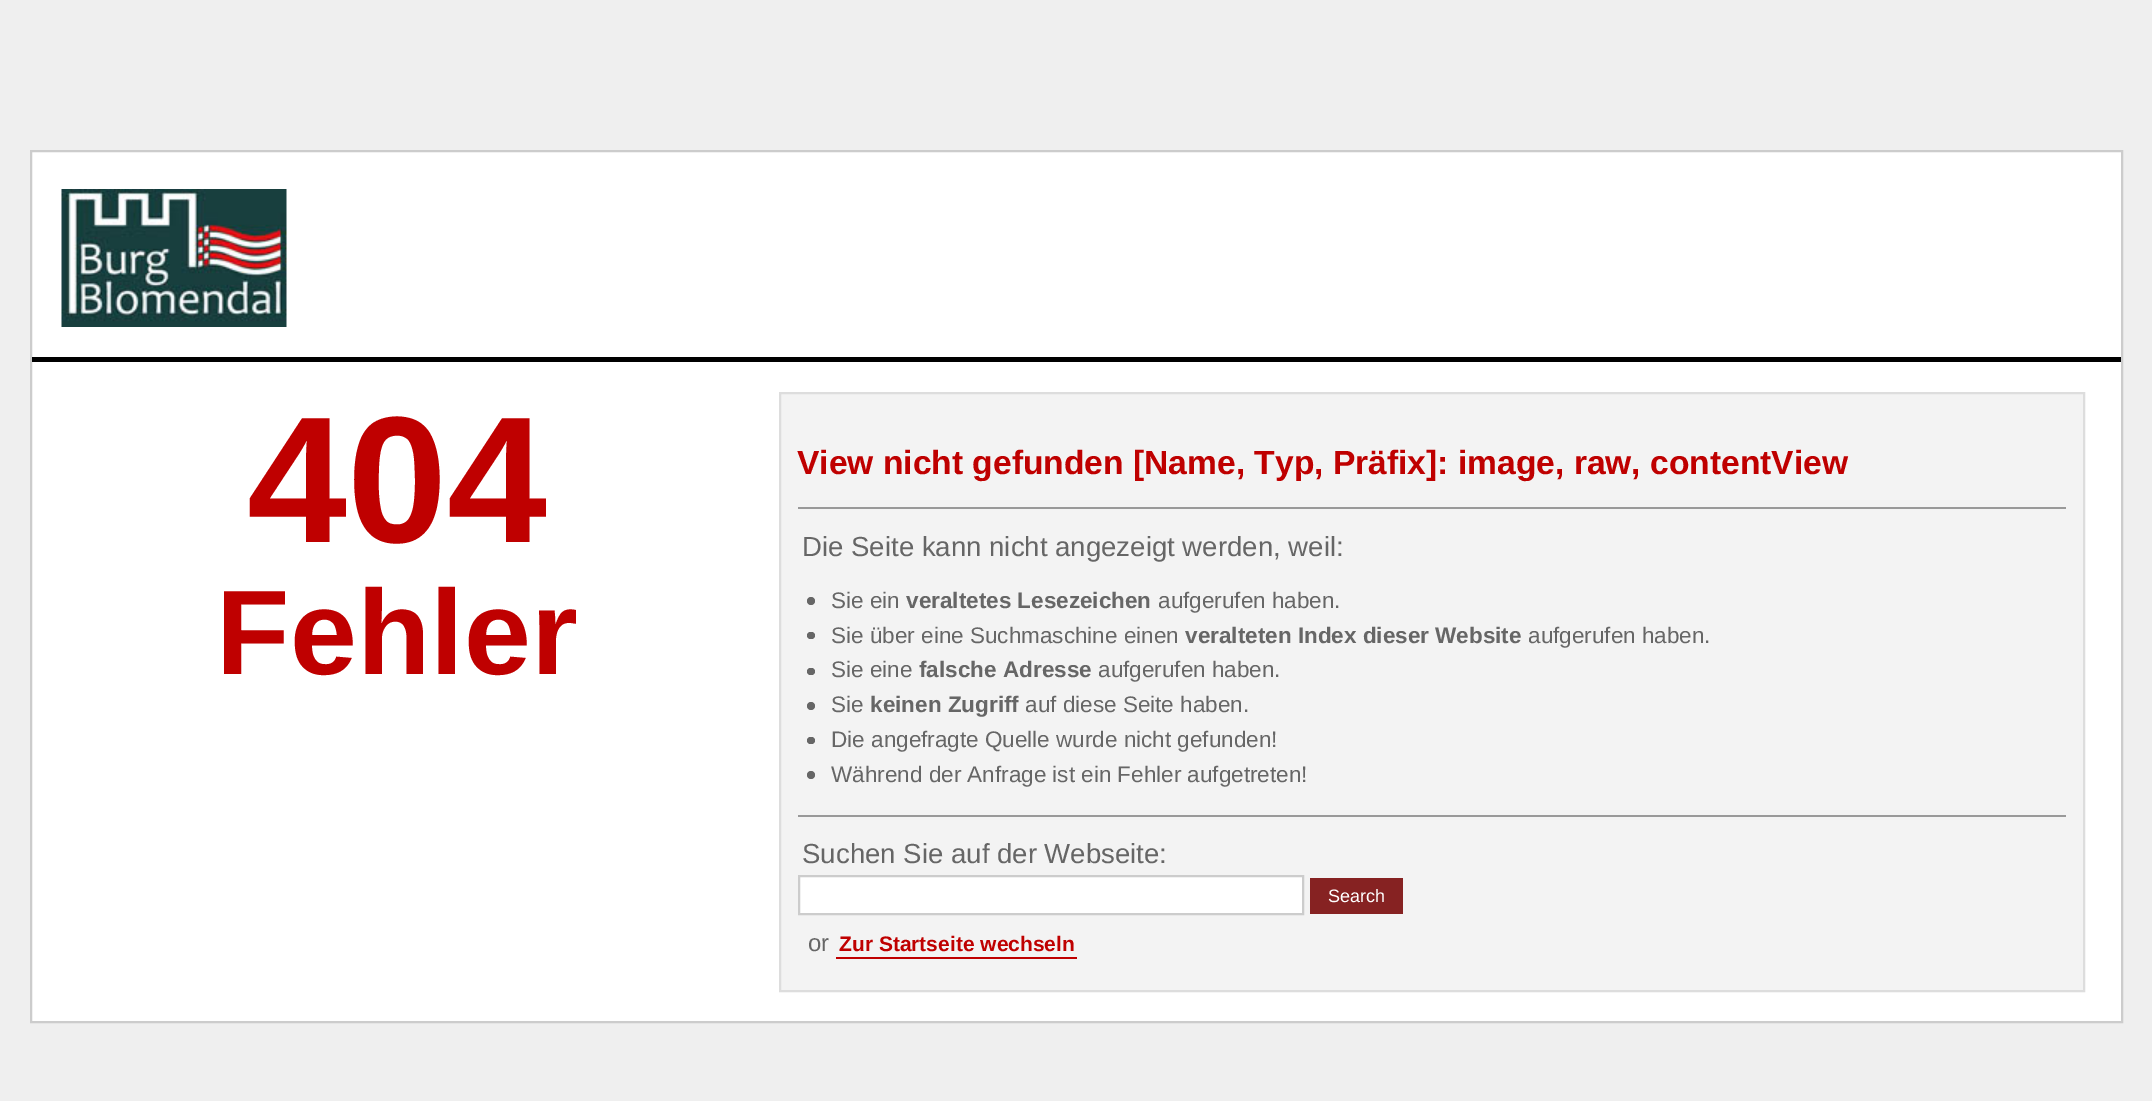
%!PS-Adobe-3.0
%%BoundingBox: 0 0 2152 1101
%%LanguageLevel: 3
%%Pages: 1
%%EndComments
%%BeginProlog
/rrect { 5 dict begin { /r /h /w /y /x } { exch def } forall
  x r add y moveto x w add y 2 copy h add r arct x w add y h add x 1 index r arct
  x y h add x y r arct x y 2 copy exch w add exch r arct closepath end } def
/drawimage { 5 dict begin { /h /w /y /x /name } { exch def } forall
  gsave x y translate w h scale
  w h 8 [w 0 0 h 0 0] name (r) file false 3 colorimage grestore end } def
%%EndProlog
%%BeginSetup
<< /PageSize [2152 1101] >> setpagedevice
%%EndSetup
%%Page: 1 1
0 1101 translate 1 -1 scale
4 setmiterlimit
0.937 setgray
0 0 2152 1101 rectfill
1 setgray
newpath 31 151 moveto 2122 151 lineto 2122 1022 lineto 31 1022 lineto closepath gsave fill grestore
0.8 setgray
2 setlinewidth
stroke
0 setgray
32 357 2089 5 rectfill
(images/1.raw) 61 189 226 138 drawimage
0.953 setgray
newpath 780 393 moveto 2084 393 lineto 2084 991 lineto 780 991 lineto closepath gsave fill grestore
0.867 setgray
stroke
0.6 setgray
798 507 1268 2 rectfill
0.4 setgray
newpath 811 601 4 0 360 arc closepath fill
807 632 8 7 3.5 rrect fill
807 668 8 7 3.5 rrect fill
newpath 811 706 4 0 360 arc closepath fill
807 737 8 7 3.5 rrect fill
newpath 811 775 4 0 360 arc closepath fill
0.6 setgray
798 815 1268 2 rectfill
1 setgray
newpath 799 876 moveto 1303 876 lineto 1303 914 lineto 799 914 lineto closepath gsave fill grestore
0.8 setgray
stroke
0.525 0.133 0.133 setrgbcolor
1310 878 93 36 rectfill
0.749 0 0 setrgbcolor
836 957 241 2 rectfill
/LiberationSans-Bold [180 0 0 -180 0 0] selectfont
247 542 moveto (404) show
/LiberationSans-Bold [120.5 0 0 -120.5 0 0] selectfont
216 674 moveto (Fehler) show
/LiberationSans-Bold [33.6 0 0 -33.6 0 0] selectfont
797 474 moveto (View nicht gefunden [Name, Typ, Präfix]: image, raw, contentView) show
/LiberationSans-Regular [27.6 0 0 -27.6 0 0] selectfont
0.4 setgray
802 556 moveto (Die Seite kann nicht angezeigt werden, weil:) show
/LiberationSans-Regular [22.5 0 0 -22.5 0 0] selectfont
831 608 moveto (Sie ein) show
/LiberationSans-Bold [22.5 0 0 -22.5 0 0] selectfont
906 608 moveto (veraltetes Lesezeichen) show
/LiberationSans-Regular [22.5 0 0 -22.5 0 0] selectfont
1158 608 moveto (aufgerufen haben.) show
831 643 moveto (Sie über eine Suchmaschine einen) show
/LiberationSans-Bold [22.5 0 0 -22.5 0 0] selectfont
1185 643 moveto (veralteten Index dieser Website) show
/LiberationSans-Regular [22.5 0 0 -22.5 0 0] selectfont
1528 643 moveto (aufgerufen haben.) show
831 677 moveto (Sie eine) show
/LiberationSans-Bold [22.5 0 0 -22.5 0 0] selectfont
919 677 moveto (falsche Adresse) show
/LiberationSans-Regular [22.5 0 0 -22.5 0 0] selectfont
1098 677 moveto (aufgerufen haben.) show
831 712 moveto (Sie) show
/LiberationSans-Bold [22.5 0 0 -22.5 0 0] selectfont
870 712 moveto (keinen Zugriff) show
/LiberationSans-Regular [22.5 0 0 -22.5 0 0] selectfont
1025 712 moveto (auf diese Seite haben.) show
831 747 moveto (Die angefragte Quelle wurde nicht gefunden!) show
831 782 moveto (Während der Anfrage ist ein Fehler aufgetreten!) show
/LiberationSans-Regular [27.6 0 0 -27.6 0 0] selectfont
802 863 moveto (Suchen Sie auf der Webseite:) show
/LiberationSans-Regular [18 0 0 -18 0 0] selectfont
1 setgray
1328 902 moveto (Search) show
/LiberationSans-Regular [24 0 0 -24 0 0] selectfont
0.4 setgray
808 951 moveto (or) show
/LiberationSans-Bold [21 0 0 -21 0 0] selectfont
0.749 0 0 setrgbcolor
839 951 moveto (Zur Startseite wechseln) show
showpage
%%EOF
